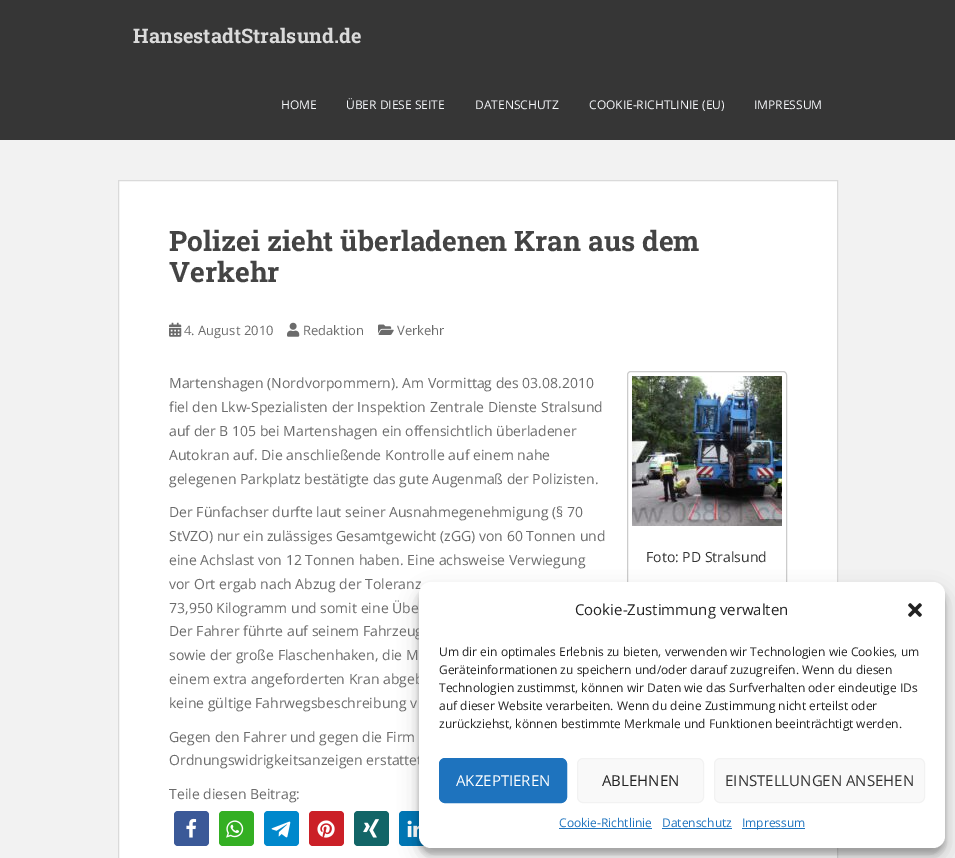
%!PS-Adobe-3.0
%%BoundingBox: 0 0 955 858
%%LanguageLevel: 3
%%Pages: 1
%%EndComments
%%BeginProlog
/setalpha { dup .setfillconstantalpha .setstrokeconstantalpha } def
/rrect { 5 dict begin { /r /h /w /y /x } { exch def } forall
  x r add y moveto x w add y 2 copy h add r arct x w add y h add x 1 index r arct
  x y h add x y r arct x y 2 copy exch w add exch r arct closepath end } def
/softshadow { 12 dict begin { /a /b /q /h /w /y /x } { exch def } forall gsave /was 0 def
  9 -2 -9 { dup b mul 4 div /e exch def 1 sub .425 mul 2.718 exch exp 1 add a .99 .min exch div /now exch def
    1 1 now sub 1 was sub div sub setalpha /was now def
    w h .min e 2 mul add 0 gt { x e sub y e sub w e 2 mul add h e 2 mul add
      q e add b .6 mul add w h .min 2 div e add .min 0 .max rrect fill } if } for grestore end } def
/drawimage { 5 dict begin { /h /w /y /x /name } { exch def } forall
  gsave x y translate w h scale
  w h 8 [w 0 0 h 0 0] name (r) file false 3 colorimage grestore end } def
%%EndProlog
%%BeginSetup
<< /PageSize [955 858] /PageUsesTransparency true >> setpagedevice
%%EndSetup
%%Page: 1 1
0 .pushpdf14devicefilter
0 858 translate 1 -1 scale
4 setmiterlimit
0.949 setgray
0 0 955 858 rectfill
0.212 setgray
0 0 955 140 rectfill
1 setgray
newpath 118.5 180.5 moveto 837.5 180.5 lineto 837.5 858.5 lineto 118.5 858.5 lineto closepath gsave fill grestore
0.855 setgray
stroke
(images/1.raw) 169 322 13 15 drawimage
(images/2.raw) 287 322 13 15 drawimage
(images/3.raw) 378 324 16 11 drawimage
0.8 setgray
627.5 371.5 159 220 3.5 rrect stroke
(images/4.raw) 632 376 150 150 drawimage
0.231 0.349 0.596 setrgbcolor
174 811 35 35 4 rrect fill
(images/5.raw) 186 818 11 20 drawimage
0.204 0.686 0.137 setrgbcolor
219 811 35 35 4 rrect fill
(images/6.raw) 226 820 18 18 drawimage
0 0.533 0.8 setrgbcolor
264 811 35 35 4 rrect fill
(images/7.raw) 271 821 20 17 drawimage
0.796 0.125 0.153 setrgbcolor
309 811 35 35 4 rrect fill
(images/8.raw) 317 820 18 18 drawimage
0.071 0.396 0.404 setrgbcolor
354 811 35 35 4 rrect fill
(images/9.raw) 363 819 16 19 drawimage
0 0.467 0.71 setrgbcolor
399 811 35 35 4 rrect fill
(images/10.raw) 407 820 12 18 drawimage
0 setgray
419 588 526 266 12 3 0.23 softshadow
419 592 526 266 12 10 0.19 softshadow
/RobotoSlab-Bold [20 0 0 -20 0 0] selectfont
0.855 setgray
133 43 moveto (HansestadtStralsund.de) show
/OpenSans-Regular [12 0 0 -12 0 0] selectfont
0.961 0.969 0.98 setrgbcolor
281 109 moveto (HOME) show
346 109 moveto (ÜBER DIESE SEITE) show
475 109 moveto (DATENSCHUTZ) show
589 109 moveto (COOKIE-RICHTLINIE \(EU\)) show
754 109 moveto (IMPRESSUM) show
/RobotoSlab-Bold [28 0 0 -28 0 0] selectfont
0.267 setgray
169 251 moveto (Polizei zieht überladenen Kran aus dem) show
169 282 moveto (Verkehr) show
/OpenSans-Regular [13 0 0 -13 0 0] selectfont
0.42 setgray
184 335 moveto (4. August 2010) show
303 335 moveto (Redaktion) show
397 335 moveto (Verkehr) show
/OpenSans-Regular [14 0 0 -14 0 0] selectfont
169 388 moveto (Martenshagen \(Nordvorpommern\). Am Vormittag des 03.08.2010) show
169 412 moveto (fiel den Lkw-Spezialisten der Inspektion Zentrale Dienste Stralsund) show
169 436 moveto (auf der B 105 bei Martenshagen ein offensichtlich überladener) show
169 460 moveto (Autokran auf. Die anschließende Kontrolle auf einem nahe) show
169 484 moveto (gelegenen Parkplatz bestätigte das gute Augenmaß der Polizisten.) show
169 517 moveto (Der Fünfachser durfte laut seiner Ausnahmegenehmigung \(§ 70) show
169 541 moveto (StVZO\) nur ein zulässiges Gesamtgewicht \(zGG\) von 60 Tonnen und) show
169 565 moveto (eine Achslast von 12 Tonnen haben. Eine achsweise Verwiegung) show
169 589 moveto (vor Ort ergab nach Abzug der Toleranz) show
169 613 moveto (73,950 Kilogramm und somit eine Übe) show
169 636 moveto (Der Fahrer führte auf seinem Fahrzeug) show
169 660 moveto (sowie der große Flaschenhaken, die M) show
169 684 moveto (einem extra angeforderten Kran abgeb) show
169 708 moveto (keine gültige Fahrwegsbeschreibung v) show
0.2 setgray
646 562 moveto (Foto: PD Stralsund) show
0.42 setgray
169 742 moveto (Gegen den Fahrer und gegen die Firm) show
169 765 moveto (Ordnungswidrigkeitsanzeigen erstattet) show
169 799 moveto (Teile diesen Beitrag:) show
1 setgray
419 582 526 266 12 rrect fill
/OpenSans-Regular [15 0 0 -15 0 0] selectfont
0.133 setgray
575 615 moveto (Cookie-Zustimmung verwalten) show
(images/11.raw) 908 603 14 14 drawimage
/OpenSans-Regular [12 0 0 -12 0 0] selectfont
439 656 moveto (Um dir ein optimales Erlebnis zu bieten, verwenden wir Technologien wie Cookies, um) show
439 674 moveto (Geräteinformationen zu speichern und/oder darauf zuzugreifen. Wenn du diesen) show
439 692 moveto (Technologien zustimmst, können wir Daten wie das Surfverhalten oder eindeutige IDs) show
439 710 moveto (auf dieser Website verarbeiten. Wenn du deine Zustimmung nicht erteilst oder) show
439 728 moveto (zurückziehst, können bestimmte Merkmale und Funktionen beeinträchtigt werden.) show
0.118 0.451 0.745 setrgbcolor
439.5 758.5 127 44 5.5 rrect gsave fill grestore
stroke
/OpenSans-Regular [15 0 0 -15 0 0] selectfont
1 setgray
456 786 moveto (AKZEPTIEREN) show
0.976 setgray
577.5 758.5 126 44 5.5 rrect gsave fill grestore
0.949 setgray
stroke
0.133 setgray
602 786 moveto (ABLEHNEN) show
0.976 setgray
714.5 758.5 210 44 5.5 rrect gsave fill grestore
0.949 setgray
stroke
0.2 setgray
725 786 moveto (EINSTELLUNGEN ANSEHEN) show
/OpenSans-Regular [12 0 0 -12 0 0] selectfont
0.118 0.451 0.745 setrgbcolor
559 827 moveto (Cookie-Richtlinie) show
559 828 93 1 rectfill
662 827 moveto (Datenschutz) show
662 828 70 1 rectfill
742 828 63 1 rectfill
742 827 moveto (Impressum) show
.poppdf14devicefilter showpage
%%EOF
